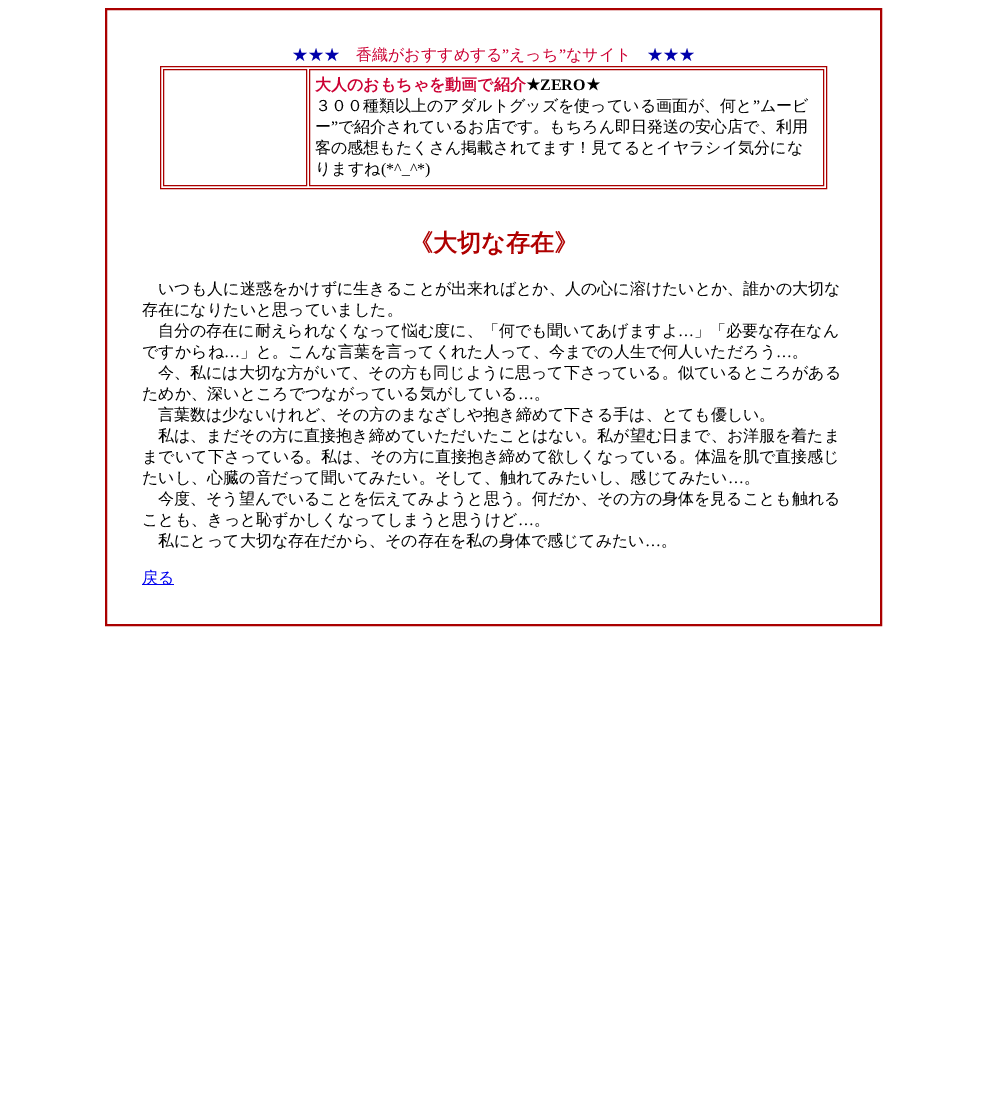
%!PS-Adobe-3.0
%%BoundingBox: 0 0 987 1112
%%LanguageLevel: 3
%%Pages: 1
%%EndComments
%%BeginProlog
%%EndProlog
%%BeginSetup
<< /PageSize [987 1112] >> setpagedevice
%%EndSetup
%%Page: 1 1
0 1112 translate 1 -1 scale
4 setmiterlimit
1 setgray
0 0 987 1112 rectfill
0.667 0 0 setrgbcolor
105.5 8.5 776 617 rectstroke
106.5 9.5 774 615 rectstroke
160.5 66.5 666 122 rectstroke
163.5 69.5 143 116 rectstroke
309.5 69.5 514 116 rectstroke
0 0 0.933 setrgbcolor
142 584 32 1 rectfill
/WenQuanYiZenHei-Medium [16 0 0 -16 0 0] selectfont
0 0 0.667 setrgbcolor
292 60 moveto (★★★) show
0.8 0 0.2 setrgbcolor
356 60 moveto (香織がおすすめする) show
/LiberationSerif-Regular [16 0 0 -16 0 0] selectfont
502 60 moveto (”) show
/WenQuanYiZenHei-Medium [16 0 0 -16 0 0] selectfont
509 60 moveto (えっち) show
/LiberationSerif-Regular [16 0 0 -16 0 0] selectfont
559 60 moveto (”) show
/WenQuanYiZenHei-Medium [16 0 0 -16 0 0] selectfont
566 60 moveto (なサイト) show
0 0 0.667 setrgbcolor
647 60 moveto (★★★) show
/WenQuanYiZenHei-Bold [16 0 0 -16 0 0] selectfont
0.8 0 0.2 setrgbcolor
315 90 moveto (大人のおもちゃを動画で紹介) show
/DejaVuSans-Bold [16 0 0 -16 0 0] selectfont
0 setgray
526 90 moveto (★) show
/LiberationSerif-Bold [16 0 0 -16 0 0] selectfont
540 90 moveto (ZERO) show
/DejaVuSans-Bold [16 0 0 -16 0 0] selectfont
586 90 moveto (★) show
/WenQuanYiZenHei-Medium [16 0 0 -16 0 0] selectfont
315 111 moveto (３００種類以上のアダルトグッズを使っている画面が、何と) show
/LiberationSerif-Regular [16 0 0 -16 0 0] selectfont
753 111 moveto (”) show
/WenQuanYiZenHei-Medium [16 0 0 -16 0 0] selectfont
760 111 moveto (ムービ) show
315 132 moveto (ー) show
/LiberationSerif-Regular [16 0 0 -16 0 0] selectfont
331 132 moveto (”) show
/WenQuanYiZenHei-Medium [16 0 0 -16 0 0] selectfont
338 132 moveto (で紹介されているお店です。もちろん即日発送の安心店で、利用) show
315 153 moveto (客の感想もたくさん掲載されてます！見てるとイヤラシイ気分にな) show
315 174 moveto (りますね) show
/LiberationSerif-Regular [16 0 0 -16 0 0] selectfont
381 174 moveto (\(*^_^*\)) show
/WenQuanYiZenHei-Bold [24 0 0 -24 0 0] selectfont
0.686 0 0 setrgbcolor
409 251 moveto (《大切な存在》) show
/WenQuanYiZenHei-Medium [16 0 0 -16 0 0] selectfont
0 setgray
158 294 moveto (いつも人に迷惑をかけずに生きることが出来ればとか、人の心に溶けたいとか、誰かの大切な) show
142 315 moveto (存在になりたいと思っていました。) show
158 336 moveto (自分の存在に耐えられなくなって悩む度に、「何でも聞いてあげますよ) show
/LiberationSerif-Regular [16 0 0 -16 0 0] selectfont
678 336 moveto (…) show
/WenQuanYiZenHei-Medium [16 0 0 -16 0 0] selectfont
694 336 moveto (」「必要な存在なん) show
142 357 moveto (ですからね) show
/LiberationSerif-Regular [16 0 0 -16 0 0] selectfont
224 357 moveto (…) show
/WenQuanYiZenHei-Medium [16 0 0 -16 0 0] selectfont
240 357 moveto (」と。こんな言葉を言ってくれた人って、今までの人生で何人いただろう) show
/LiberationSerif-Regular [16 0 0 -16 0 0] selectfont
776 357 moveto (…) show
/WenQuanYiZenHei-Medium [16 0 0 -16 0 0] selectfont
792 357 moveto (。) show
158 378 moveto (今、私には大切な方がいて、その方も同じように思って下さっている。似ているところがある) show
142 399 moveto (ためか、深いところでつながっている気がしている) show
/LiberationSerif-Regular [16 0 0 -16 0 0] selectfont
518 399 moveto (…) show
/WenQuanYiZenHei-Medium [16 0 0 -16 0 0] selectfont
534 399 moveto (。) show
158 420 moveto (言葉数は少ないけれど、その方のまなざしや抱き締めて下さる手は、とても優しい。) show
158 441 moveto (私は、まだその方に直接抱き締めていただいたことはない。私が望む日まで、お洋服を着たま) show
142 462 moveto (までいて下さっている。私は、その方に直接抱き締めて欲しくなっている。体温を肌で直接感じ) show
142 483 moveto (たいし、心臓の音だって聞いてみたい。そして、触れてみたいし、感じてみたい) show
/LiberationSerif-Regular [16 0 0 -16 0 0] selectfont
728 483 moveto (…) show
/WenQuanYiZenHei-Medium [16 0 0 -16 0 0] selectfont
744 483 moveto (。) show
158 504 moveto (今度、そう望んでいることを伝えてみようと思う。何だか、その方の身体を見ることも触れる) show
142 525 moveto (ことも、きっと恥ずかしくなってしまうと思うけど) show
/LiberationSerif-Regular [16 0 0 -16 0 0] selectfont
518 525 moveto (…) show
/WenQuanYiZenHei-Medium [16 0 0 -16 0 0] selectfont
534 525 moveto (。) show
158 546 moveto (私にとって大切な存在だから、その存在を私の身体で感じてみたい) show
/LiberationSerif-Regular [16 0 0 -16 0 0] selectfont
645 546 moveto (…) show
/WenQuanYiZenHei-Medium [16 0 0 -16 0 0] selectfont
661 546 moveto (。) show
0 0 0.933 setrgbcolor
142 583 moveto (戻る) show
showpage
%%EOF
